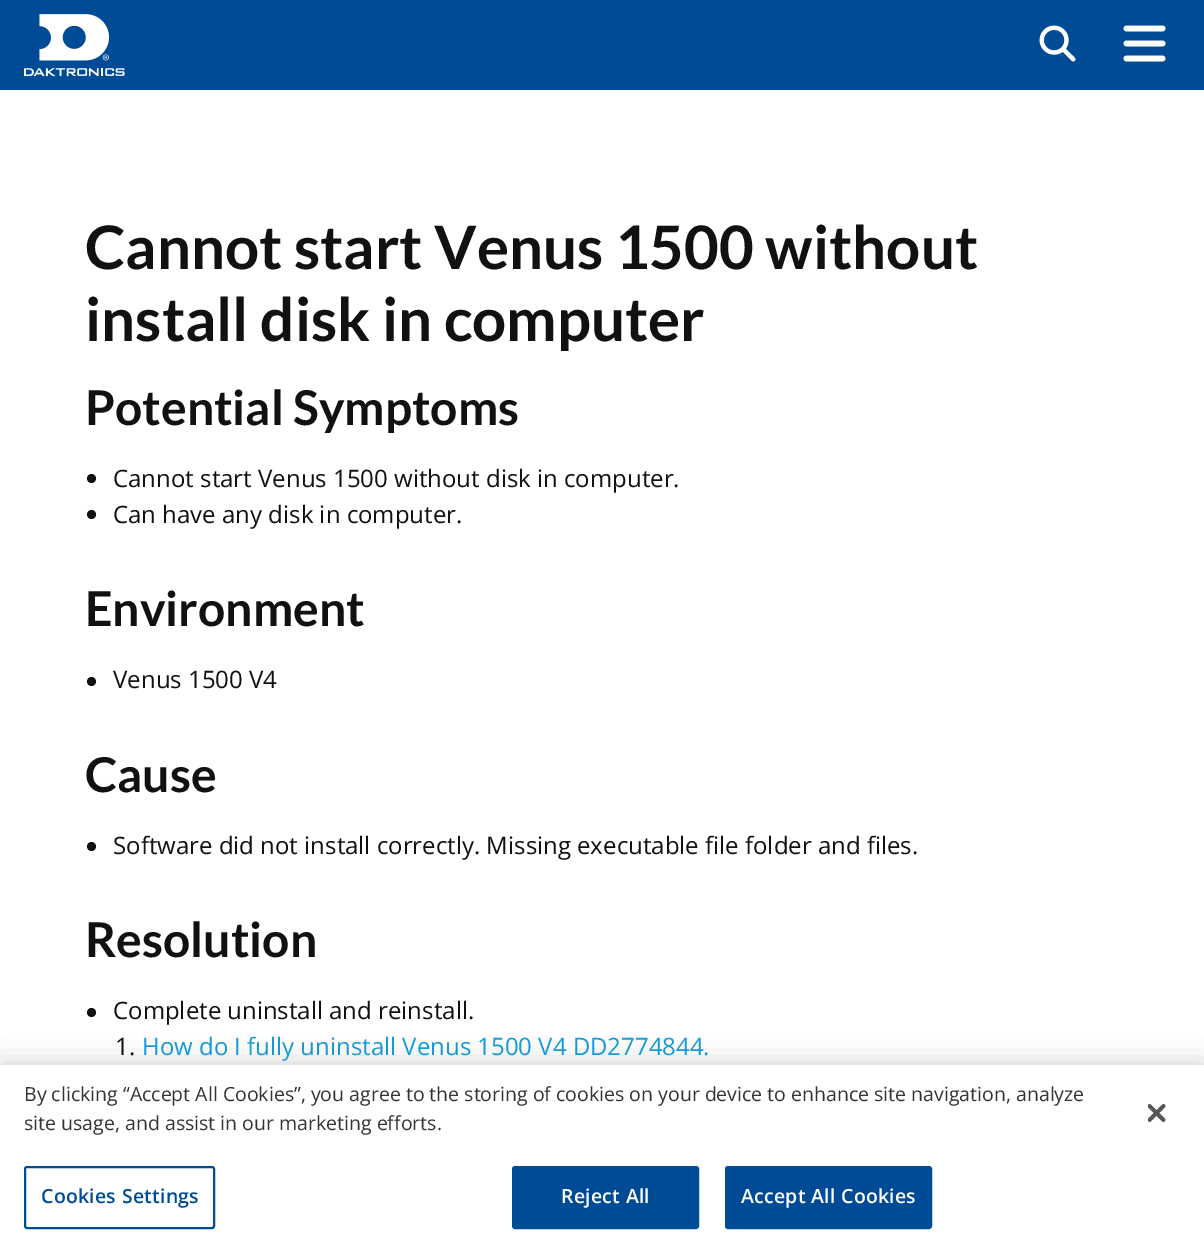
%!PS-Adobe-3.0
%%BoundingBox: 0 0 1204 1240
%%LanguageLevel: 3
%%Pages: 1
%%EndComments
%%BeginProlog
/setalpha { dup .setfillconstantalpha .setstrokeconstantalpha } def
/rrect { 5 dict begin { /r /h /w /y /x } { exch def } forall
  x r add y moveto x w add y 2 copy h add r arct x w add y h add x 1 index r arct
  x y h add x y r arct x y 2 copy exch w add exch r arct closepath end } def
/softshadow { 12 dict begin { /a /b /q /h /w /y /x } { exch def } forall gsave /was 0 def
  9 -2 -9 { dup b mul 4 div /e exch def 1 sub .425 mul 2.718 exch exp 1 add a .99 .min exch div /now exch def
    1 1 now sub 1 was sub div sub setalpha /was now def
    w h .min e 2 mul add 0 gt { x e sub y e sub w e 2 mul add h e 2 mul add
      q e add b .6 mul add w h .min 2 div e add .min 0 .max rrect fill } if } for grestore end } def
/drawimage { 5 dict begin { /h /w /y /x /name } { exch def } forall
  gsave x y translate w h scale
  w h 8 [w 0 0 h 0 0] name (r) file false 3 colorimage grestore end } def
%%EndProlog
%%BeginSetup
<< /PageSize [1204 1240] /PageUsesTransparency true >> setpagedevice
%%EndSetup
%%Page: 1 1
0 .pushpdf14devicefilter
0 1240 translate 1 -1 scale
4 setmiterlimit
1 setgray
0 0 1204 1240 rectfill
0 0.294 0.588 setrgbcolor
0 0 1204 90 rectfill
(images/1.raw) 24 14 101 63 drawimage
(images/2.raw) 1039 25 37 37 drawimage
(images/3.raw) 1123 25 43 37 drawimage
0.067 setgray
newpath 91.5 478.5 4.5 0 360 arc closepath fill
newpath 91.5 514.5 4.5 0 360 arc closepath fill
newpath 91.5 681.5 4.5 0 360 arc closepath fill
newpath 91.5 846.5 4.5 0 360 arc closepath fill
newpath 91.5 1012.5 4.5 0 360 arc closepath fill
0 setgray
0 1065 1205 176 0 13.5 0.2 softshadow
1 setgray
0 1065 1204 175 rectfill
0 0.294 0.588 setrgbcolor
2 setlinewidth
25 1167 189 61 2 rrect stroke
513 1167 185 61 2 rrect gsave fill grestore
stroke
726 1167 205 61 2 rrect gsave fill grestore
stroke
(images/4.raw) 1148 1104 18 18 drawimage
/Lato-Bold [60 0 0 -60 0 0] selectfont
0.067 setgray
85 269 moveto (Cannot start Venus 1500 without) show
85 341 moveto (install disk in computer) show
/Lato-Bold [48 0 0 -48 0 0] selectfont
85 425 moveto (Potential Symptoms) show
/OpenSans-Regular [24 0 0 -24 0 0] selectfont
113 487 moveto (Cannot start Venus 1500 without disk in computer.) show
113 523 moveto (Can have any disk in computer.) show
/Lato-Bold [48 0 0 -48 0 0] selectfont
85 626 moveto (Environment) show
/OpenSans-Regular [24 0 0 -24 0 0] selectfont
113 688 moveto (Venus 1500 V4) show
/Lato-Bold [48 0 0 -48 0 0] selectfont
85 792 moveto (Cause) show
/OpenSans-Regular [24 0 0 -24 0 0] selectfont
113 854 moveto (Software did not install correctly. Missing executable file folder and files.) show
/Lato-Bold [48 0 0 -48 0 0] selectfont
85 957 moveto (Resolution) show
/OpenSans-Regular [24 0 0 -24 0 0] selectfont
113 1019 moveto (Complete uninstall and reinstall.) show
115 1055 moveto (1.) show
0.086 0.604 0.843 setrgbcolor
142 1055 moveto (How do I fully uninstall Venus 1500 V4 DD2774844.) show
/OpenSans-Regular [19.5 0 0 -19.5 0 0] selectfont
0.2 setgray
24 1101 moveto (By clicking “Accept All Cookies”, you agree to the storing of cookies on your device to enhance site navigation, analyze) show
24 1130 moveto (site usage, and assist in our marketing efforts.) show
/OpenSans-SemiBold [19.5 0 0 -19.5 0 0] selectfont
0 0.294 0.588 setrgbcolor
41 1203 moveto 0.25 0 (Cookies Settings) ashow
1 setgray
561 1203 moveto 0.25 0 (Reject All) ashow
741 1203 moveto 0.25 0 (Accept All Cookies) ashow
.poppdf14devicefilter showpage
%%EOF
